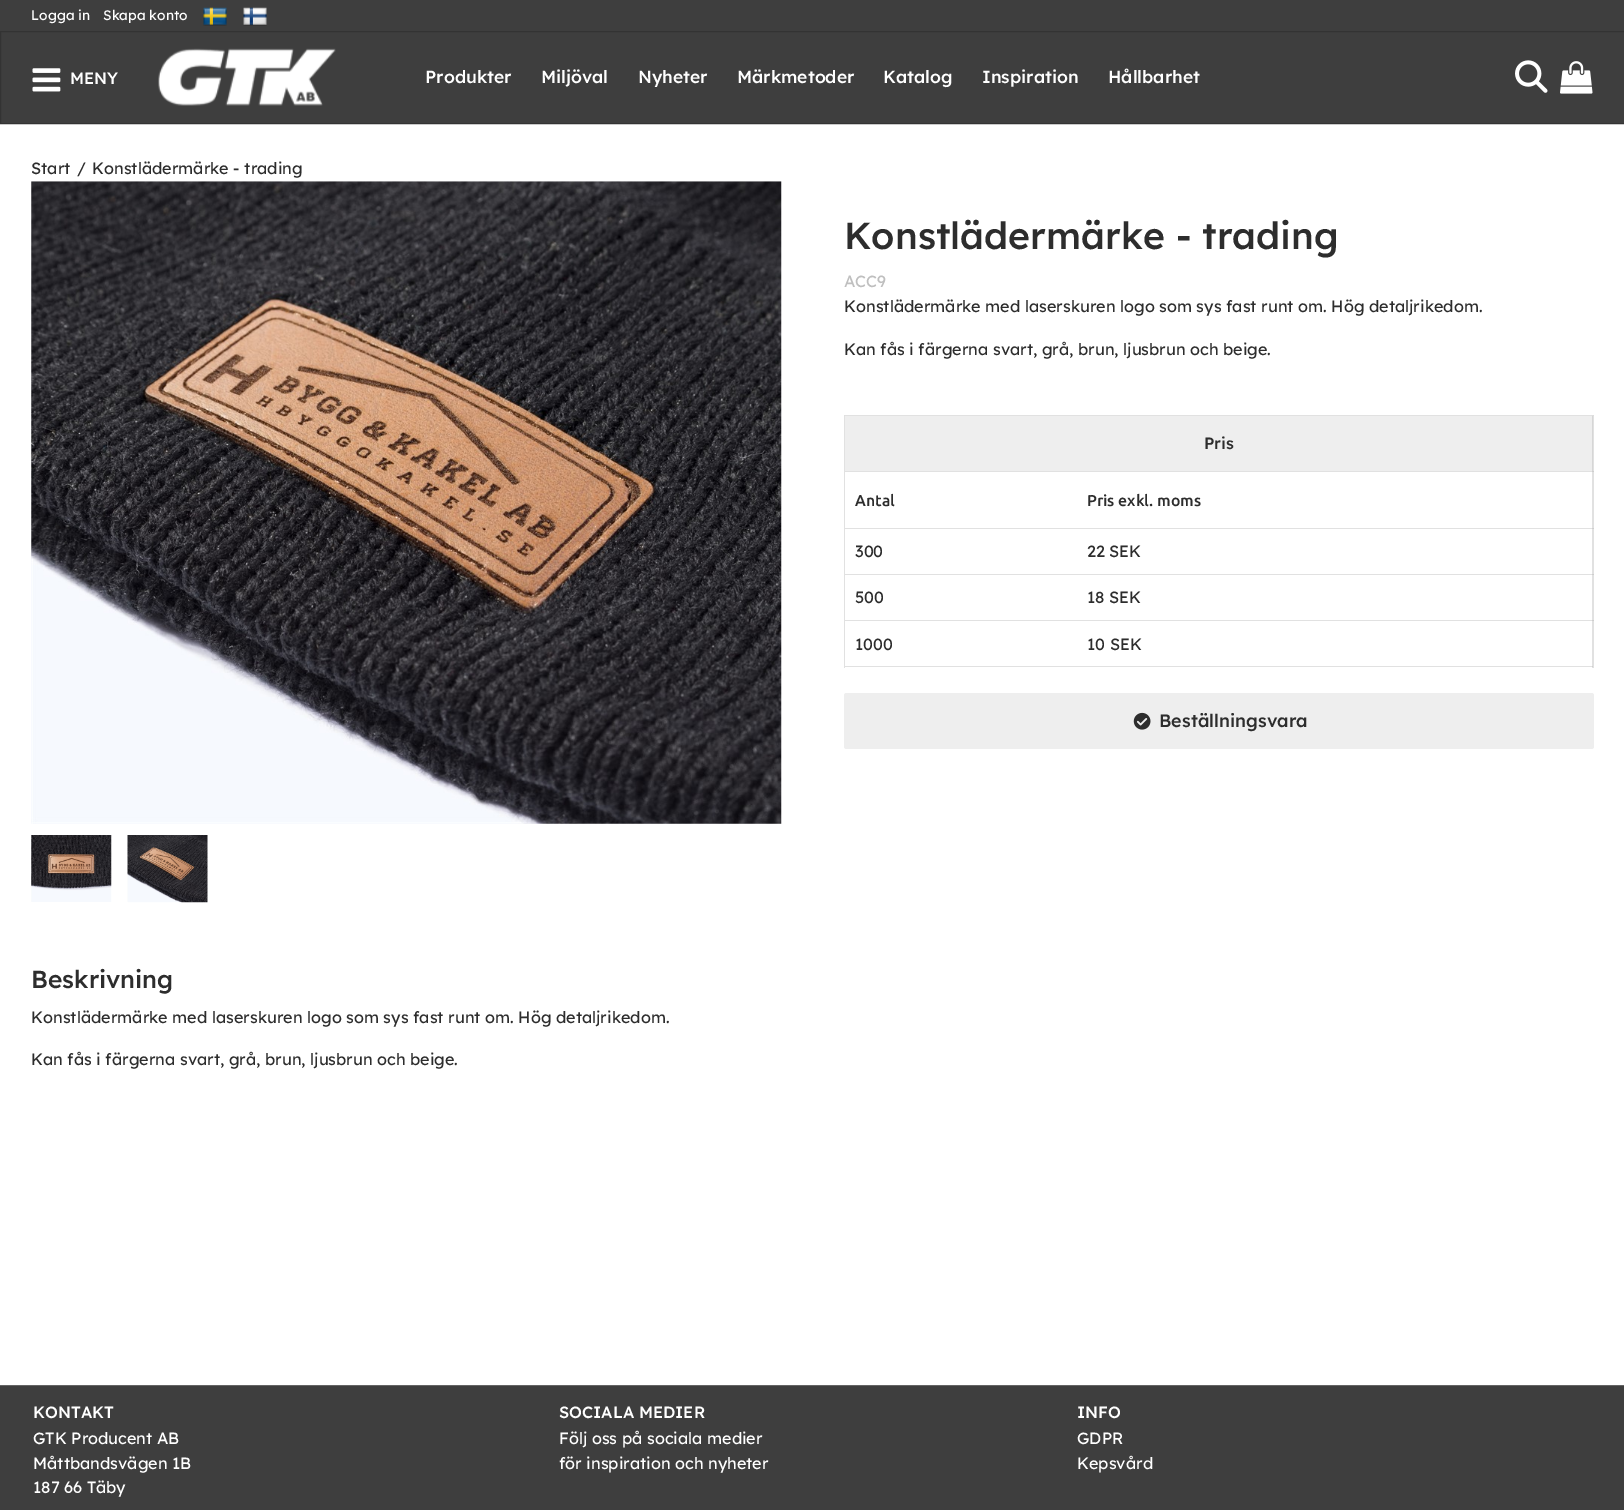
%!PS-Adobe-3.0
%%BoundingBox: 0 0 1624 1510
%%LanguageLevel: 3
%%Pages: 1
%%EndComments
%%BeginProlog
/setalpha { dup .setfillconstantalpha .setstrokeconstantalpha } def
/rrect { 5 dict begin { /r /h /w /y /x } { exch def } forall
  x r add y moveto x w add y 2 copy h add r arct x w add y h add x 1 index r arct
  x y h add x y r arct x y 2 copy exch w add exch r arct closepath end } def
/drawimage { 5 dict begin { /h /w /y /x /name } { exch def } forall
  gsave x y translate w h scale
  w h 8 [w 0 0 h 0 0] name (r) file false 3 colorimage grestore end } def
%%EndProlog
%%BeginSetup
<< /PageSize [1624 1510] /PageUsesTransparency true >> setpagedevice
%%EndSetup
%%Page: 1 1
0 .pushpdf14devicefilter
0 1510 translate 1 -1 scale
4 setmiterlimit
1 setgray
0 0 1624 1510 rectfill
0.243 setgray
0 0 1624 123 rectfill
(images/1.raw) 203 7 24 19 drawimage
(images/2.raw) 243 7 24 19 drawimage
0.2 setgray
0.5 31.5 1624 92 rectstroke
(images/3.raw) 32 68 29 24 drawimage
(images/4.raw) 158 48 178 58 drawimage
(images/5.raw) 1515 60 33 33 drawimage
(images/6.raw) 1560 61 33 33 drawimage
(images/7.raw) 31 181 751 643 drawimage
(images/8.raw) 31 835 81 67 drawimage
(images/9.raw) 127 835 81 68 drawimage
0.882 setgray
newpath 844 415 moveto 1594 415 lineto 1592 416 lineto 845 416 lineto closepath fill
0.35 setalpha
0.667 setgray
newpath 1594 415 moveto 1594 668 lineto 1592 668 lineto 1592 416 lineto closepath fill
newpath 844 668 moveto 844 415 lineto 845 416 lineto 845 668 lineto closepath fill
0.2 setalpha
845 416 748 55 rectfill
0.35 setalpha
845 666 748 1 rectfill
845 471 749 1 rectfill
845 528 749 1 rectfill
845 574 749 1 rectfill
845 620 749 1 rectfill
1 setalpha
0.933 setgray
844 693 750 56 2.5 rrect fill
(images/10.raw) 1133 712 18 18 drawimage
0.243 setgray
0 1386 1624 124 rectfill
0.392 setgray
0 1385 1624 1 rectfill
/Lexend-Regular [13.75 0 0 -13.75 0 0] selectfont
1 setgray
31 20 moveto (Logga in) show
103 20 moveto (Skapa konto) show
/Lexend-Medium [16.25 0 0 -16.25 0 0] selectfont
70 84 moveto (MENY) show
/Lexend-Medium [17.5 0 0 -17.5 0 0] selectfont
425 83 moveto (Produkter) show
541 83 moveto (Miljöval) show
638 83 moveto (Nyheter) show
737 83 moveto (Märkmetoder) show
883 83 moveto (Katalog) show
982 83 moveto (Inspiration) show
1108 83 moveto (Hållbarhet) show
/Lexend-Regular [16.25 0 0 -16.25 0 0] selectfont
0.176 setgray
31 174 moveto (Start) show
77 174 moveto (/) show
92 174 moveto (Konstlädermärke - trading) show
/Lexend-Medium [37.4 0 0 -37.4 0 0] selectfont
844 249 moveto (Konstlädermärke - trading) show
/Lexend-Regular [16.25 0 0 -16.25 0 0] selectfont
0.749 setgray
844 287 moveto (ACC9) show
0.176 setgray
844 312 moveto (Konstlädermärke med laserskuren logo som sys fast runt om. Hög detaljrikedom.) show
844 355 moveto (Kan fås i färgerna svart, grå, brun, ljusbrun och beige.) show
/Lexend-Medium [16.25 0 0 -16.25 0 0] selectfont
1204 449 moveto (Pris) show
/Ubuntu-Medium [15.75 0 0 -15.75 0 0] selectfont
855 506 moveto (Antal) show
1087 506 moveto (Pris exkl. moms) show
/Lexend-Regular [16.25 0 0 -16.25 0 0] selectfont
855 557 moveto (300) show
1087 557 moveto (22 SEK) show
855 603 moveto (500) show
1087 603 moveto (18 SEK) show
855 650 moveto (1000) show
1087 650 moveto (10 SEK) show
/Lexend-Medium [18 0 0 -18 0 0] selectfont
1159 727 moveto (Beställningsvara) show
/Lexend-Medium [24.5 0 0 -24.5 0 0] selectfont
31 988 moveto (Beskrivning) show
/Lexend-Regular [16.25 0 0 -16.25 0 0] selectfont
31 1023 moveto (Konstlädermärke med laserskuren logo som sys fast runt om. Hög detaljrikedom.) show
31 1065 moveto (Kan fås i färgerna svart, grå, brun, ljusbrun och beige.) show
/Lexend-Medium [16.25 0 0 -16.25 0 0] selectfont
1 setgray
33 1418 moveto (KONTAKT) show
559 1418 moveto (SOCIALA MEDIER) show
1077 1418 moveto (INFO) show
/Lexend-Regular [16.25 0 0 -16.25 0 0] selectfont
33 1444 moveto (GTK Producent AB) show
33 1469 moveto (Måttbandsvägen 1B) show
33 1493 moveto (187 66 Täby) show
559 1444 moveto (Följ oss på sociala medier) show
559 1469 moveto (för inspiration och nyheter) show
1077 1444 moveto (GDPR) show
1077 1469 moveto (Kepsvård) show
.poppdf14devicefilter showpage
%%EOF
